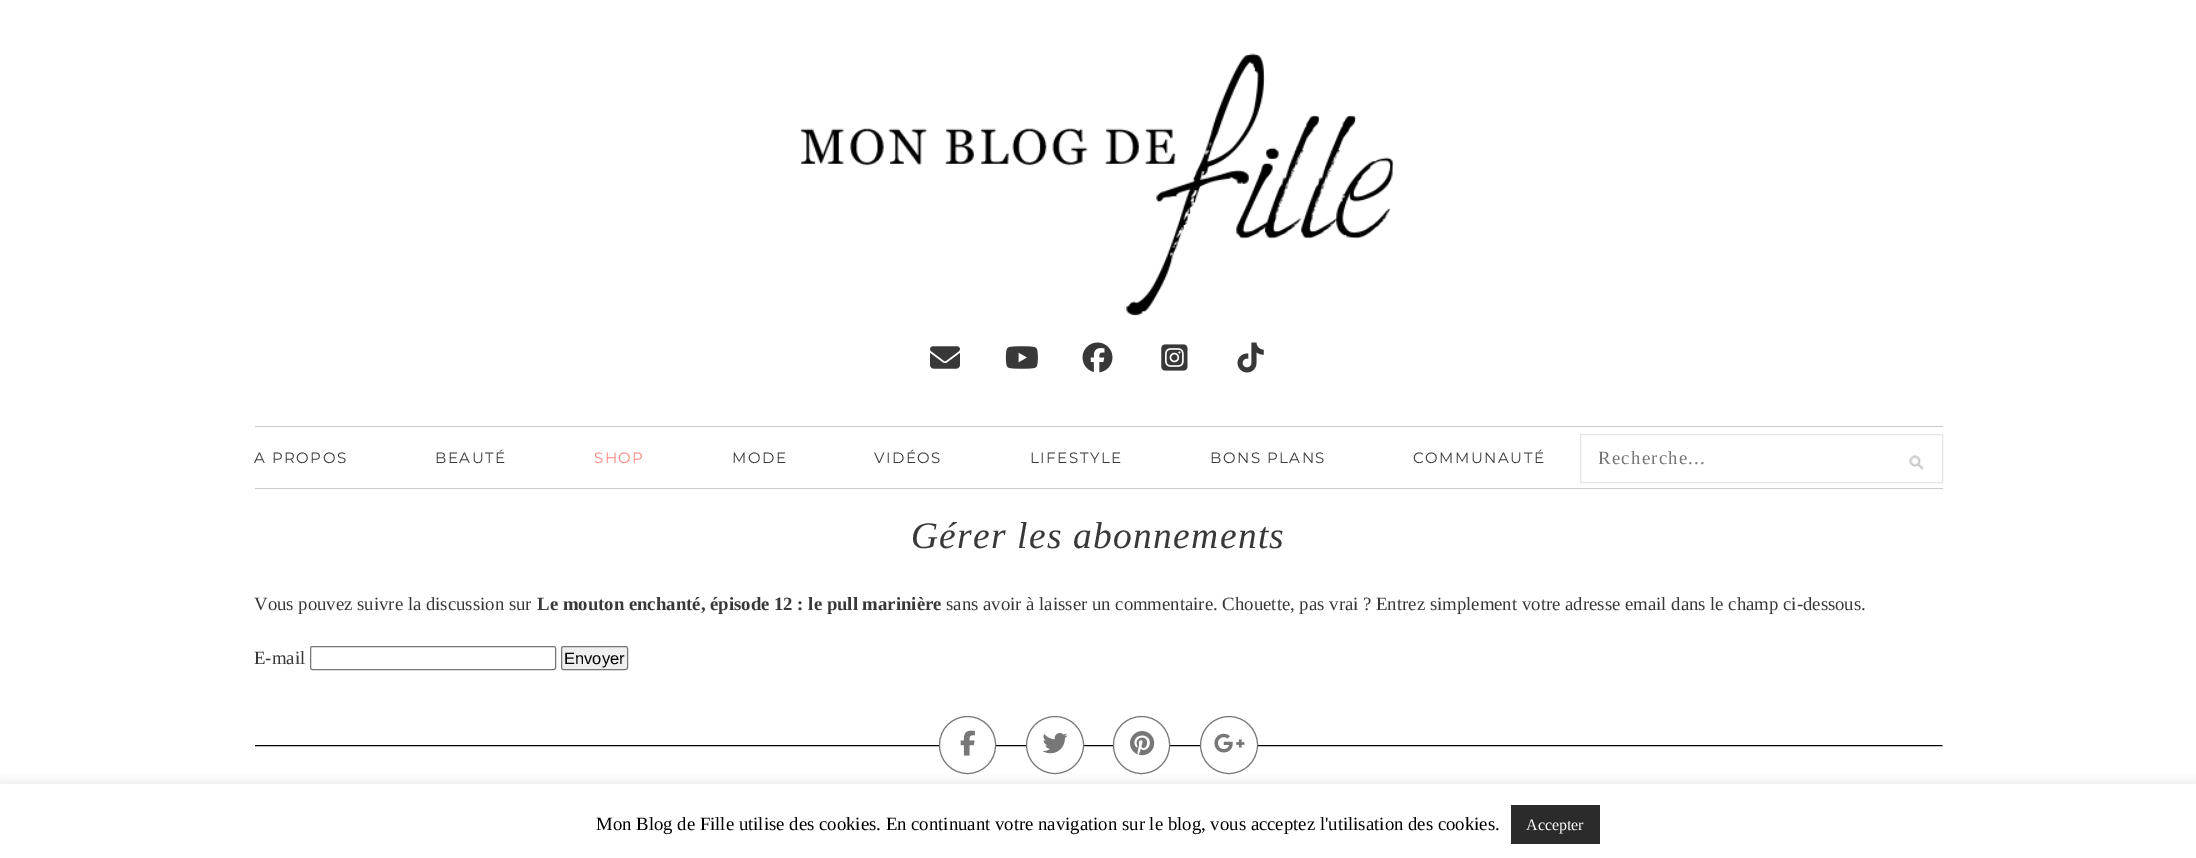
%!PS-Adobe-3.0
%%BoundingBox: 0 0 2196 858
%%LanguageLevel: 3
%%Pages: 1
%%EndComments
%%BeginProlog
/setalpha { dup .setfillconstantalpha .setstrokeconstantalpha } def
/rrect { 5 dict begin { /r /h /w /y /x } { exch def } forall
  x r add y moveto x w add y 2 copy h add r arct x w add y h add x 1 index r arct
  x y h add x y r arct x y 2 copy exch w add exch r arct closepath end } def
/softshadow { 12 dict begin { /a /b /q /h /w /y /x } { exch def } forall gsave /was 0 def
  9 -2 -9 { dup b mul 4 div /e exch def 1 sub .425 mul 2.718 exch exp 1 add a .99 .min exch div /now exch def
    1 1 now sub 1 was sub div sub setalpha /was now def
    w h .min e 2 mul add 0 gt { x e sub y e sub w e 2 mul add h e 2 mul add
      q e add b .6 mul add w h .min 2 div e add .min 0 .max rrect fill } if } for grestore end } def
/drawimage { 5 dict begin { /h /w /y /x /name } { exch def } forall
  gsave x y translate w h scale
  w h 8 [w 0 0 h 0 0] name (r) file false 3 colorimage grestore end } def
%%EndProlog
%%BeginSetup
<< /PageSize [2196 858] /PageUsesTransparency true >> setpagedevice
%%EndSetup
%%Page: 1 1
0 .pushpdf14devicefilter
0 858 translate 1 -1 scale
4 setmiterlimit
1 setgray
0 0 2196 858 rectfill
(images/1.raw) 801 53 593 263 drawimage
(images/2.raw) 930 346 30 23 drawimage
(images/3.raw) 1005 346 33 23 drawimage
(images/4.raw) 1082 342 31 31 drawimage
(images/5.raw) 1161 344 27 27 drawimage
(images/6.raw) 1237 342 27 31 drawimage
0.8 setgray
255 426 1688 1 rectfill
255 488 1688 1 rectfill
(images/7.raw) 1908 455 16 15 drawimage
0.898 setgray
1580.5 434.5 362 48 rectstroke
0.463 setgray
310.5 646.5 245 23 2 rrect stroke
0.937 setgray
561.5 646.5 66 23 2 rrect gsave fill grestore
0.463 setgray
stroke
(images/8.raw) 255 745 1688 2 drawimage
1 setgray
939.5 716.5 56 57 28 rrect gsave fill grestore
0.467 setgray
stroke
(images/9.raw) 960 730 15 26 drawimage
1 setgray
newpath 1055 745 28.5 0 360 arc closepath gsave fill grestore
0.467 setgray
stroke
(images/10.raw) 1042 733 26 21 drawimage
1 setgray
1113.5 716.5 56 57 28 rrect gsave fill grestore
0.467 setgray
stroke
(images/11.raw) 1130 731 25 25 drawimage
1 setgray
newpath 1229 745 28.5 0 360 arc closepath gsave fill grestore
0.467 setgray
stroke
(images/12.raw) 1214 733 31 20 drawimage
gsave
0 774 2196 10 rectclip
0.675 0.671 0.671 setrgbcolor
0 783 2196 75 0 6 0.3 softshadow
grestore
0.169 setgray
1511 805 89 39 rectfill
/Montserrat-Thin [15 0 0 -15 0 0] selectfont
0.22 setgray
254 463 moveto 1.5 0 (A PROPOS) ashow
435 463 moveto 1.5 0 (BEAUTÉ) ashow
0.98 0.51 0.475 setrgbcolor
594 463 moveto 1.5 0 (SHOP) ashow
0.22 setgray
732 463 moveto 1.5 0 (MODE) ashow
874 463 moveto 1.5 0 (VIDÉOS) ashow
1030 463 moveto 1.5 0 (LIFESTYLE) ashow
1210 463 moveto 1.5 0 (BONS PLANS) ashow
1413 463 moveto 1.5 0 (COMMUNAUTÉ) ashow
gsave
1599 448 325 21 rectclip
/LiberationSerif-Regular [18.75 0 0 -18.75 0 0] selectfont
0.459 setgray
1598 464 moveto 1.25 0 (Recherche...) ashow
grestore
/LiberationSerif-Italic [37.5 0 0 -37.5 0 0] selectfont
911 548 moveto 1.25 0 (Gérer les abonnements) ashow
/LiberationSerif-Regular [18.75 0 0 -18.75 0 0] selectfont
254 610 moveto (Vous pouvez suivre la discussion sur) show
/LiberationSerif-Bold [18.75 0 0 -18.75 0 0] selectfont
537 610 moveto (Le mouton enchanté, épisode 12 : le pull marinière) show
/LiberationSerif-Regular [18.75 0 0 -18.75 0 0] selectfont
946 610 moveto (sans avoir à laisser un commentaire. Chouette, pas vrai ? Entrez simplement votre adresse email dans le champ ci-dessous.) show
254 664 moveto (E-mail) show
/LiberationSans-Regular [16.5 0 0 -16.5 0 0] selectfont
0 setgray
564 664 moveto (Envoyer) show
/LiberationSerif-Regular [18.75 0 0 -18.75 0 0] selectfont
596 830 moveto (Mon Blog de Fille utilise des cookies. En continuant votre navigation sur le blog, vous acceptez l'utilisation des cookies.) show
/LiberationSerif-Regular [16 0 0 -16 0 0] selectfont
1 setgray
1526 830 moveto (Accepter) show
.poppdf14devicefilter showpage
%%EOF
